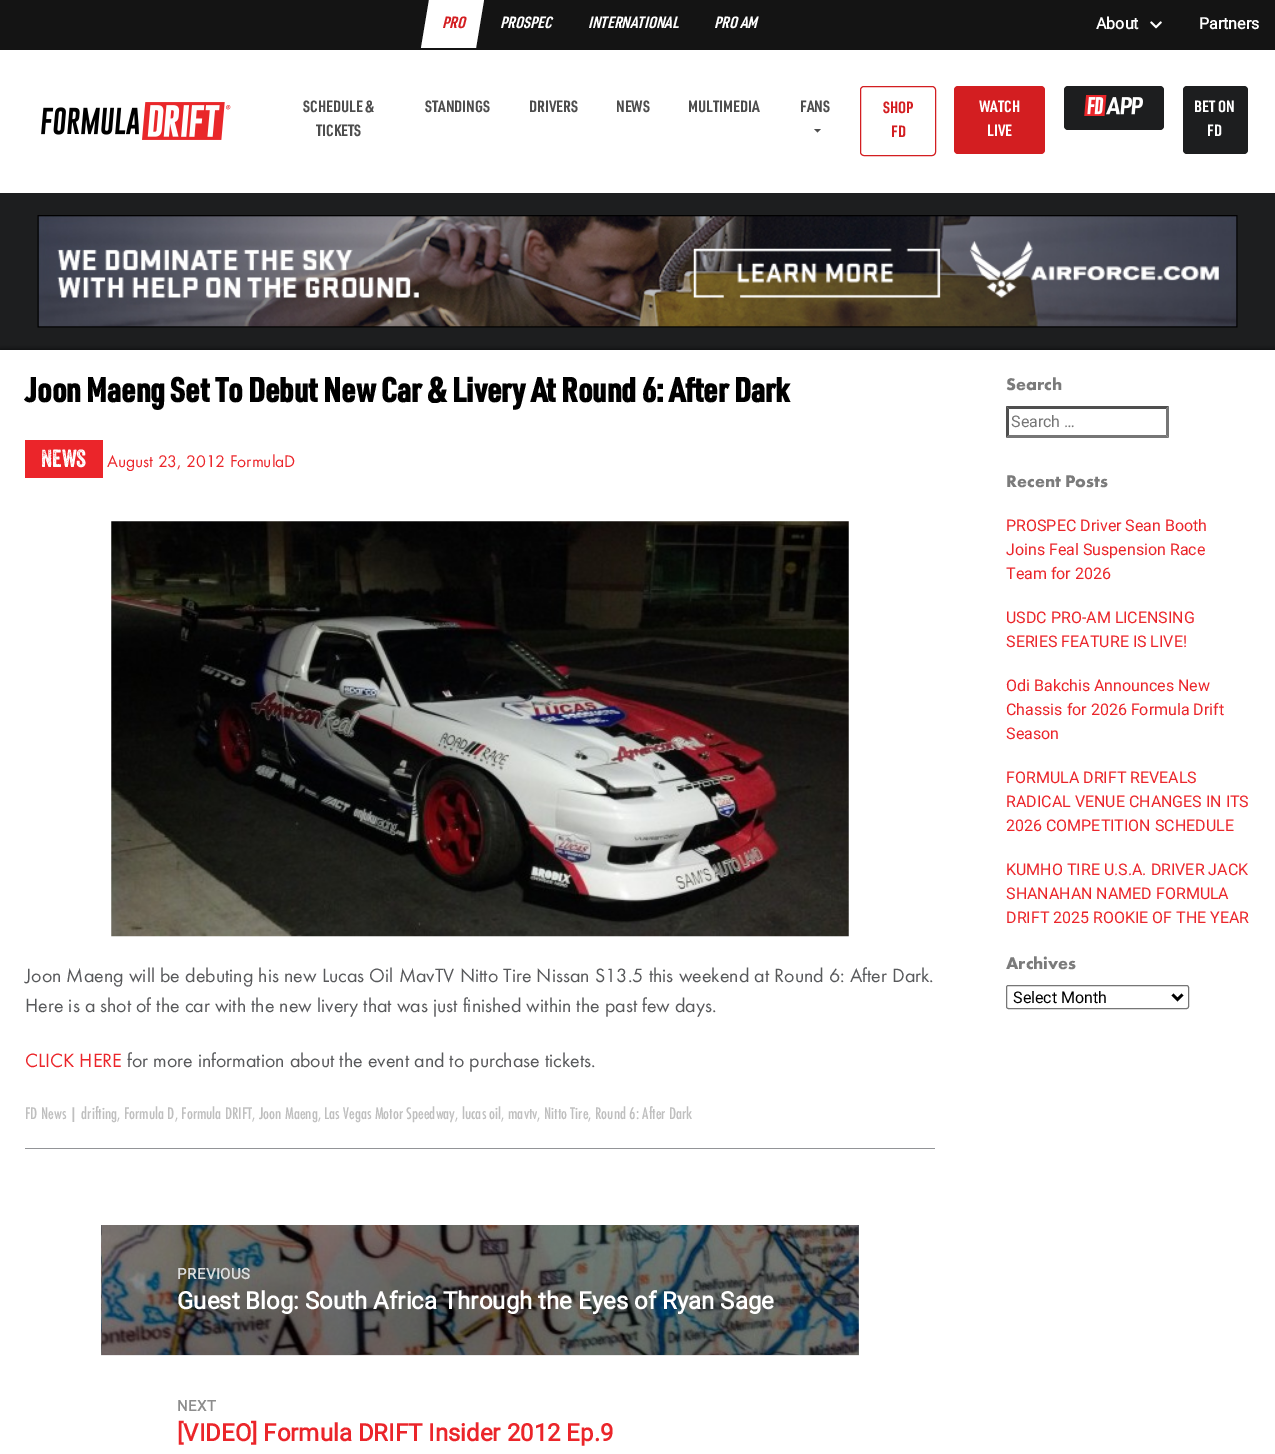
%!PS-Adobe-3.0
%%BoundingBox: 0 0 1275 1454
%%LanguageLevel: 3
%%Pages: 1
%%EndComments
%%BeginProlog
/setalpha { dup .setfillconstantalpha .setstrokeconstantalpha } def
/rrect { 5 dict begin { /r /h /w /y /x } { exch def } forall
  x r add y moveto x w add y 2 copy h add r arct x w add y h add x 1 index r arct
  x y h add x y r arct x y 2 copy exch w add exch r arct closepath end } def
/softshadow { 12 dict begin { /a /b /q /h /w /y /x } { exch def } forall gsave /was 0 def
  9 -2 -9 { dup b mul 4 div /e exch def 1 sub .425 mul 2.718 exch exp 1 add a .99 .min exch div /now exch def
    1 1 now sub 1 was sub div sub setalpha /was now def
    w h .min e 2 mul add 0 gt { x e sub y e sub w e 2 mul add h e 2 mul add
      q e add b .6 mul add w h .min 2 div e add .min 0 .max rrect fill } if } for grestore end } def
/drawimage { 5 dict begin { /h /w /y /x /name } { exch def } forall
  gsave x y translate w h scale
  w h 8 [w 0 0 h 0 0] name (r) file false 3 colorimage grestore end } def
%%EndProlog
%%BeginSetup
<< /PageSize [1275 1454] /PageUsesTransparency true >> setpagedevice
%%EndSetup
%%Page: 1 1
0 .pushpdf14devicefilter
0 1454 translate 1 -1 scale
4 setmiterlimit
0.114 0.118 0.122 setrgbcolor
0 0 1275 1454 rectfill
0.078 setgray
0 0 1275 50 rectfill
1 setgray
newpath 429 0 moveto 484 0 lineto 476 48 lineto 421 48 lineto closepath fill
(images/1.raw) 1150 21 12 8 drawimage
0 50 1275 143 rectfill
(images/2.raw) 41 102 190 38 drawimage
0.302 setgray
newpath 814 129 moveto 821 129 lineto 817.5 132.5 lineto closepath fill
0.827 0.118 0.129 setrgbcolor
860.5 86.5 75 69 3.5 rrect stroke
954 86 91 68 4 rrect fill
0.114 0.118 0.122 setrgbcolor
1064 86 100 44 4 rrect fill
(images/3.raw) 1084 95 59 21 drawimage
1183 86 65 68 4 rrect fill
(images/4.raw) 37 215 1201 113 drawimage
0 setgray
0 350 1275 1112 0 2.5 0.75 softshadow
1 setgray
0 350 1275 1104 rectfill
0.573 0.58 0.592 setrgbcolor
25 1148 910 1 rectfill
0.922 0.145 0.165 setrgbcolor
25 440 78 38 rectfill
(images/5.raw) 111 521 738 416 drawimage
(images/6.raw) 101 1225 758 130 drawimage
0.4 setalpha
0 setgray
101 1225 758 130 rectfill
1 setalpha
0.922 setgray
101 1355 758 1 rectfill
0.31 setgray
newpath 1006 406 moveto 1169 406 lineto 1166 409 lineto 1009 409 lineto closepath fill
0.463 setgray
newpath 1169 406 moveto 1169 437.5 lineto 1166 435 lineto 1166 409 lineto closepath fill
newpath 1169 438 moveto 1006 438 lineto 1009 435 lineto 1166 435 lineto closepath fill
0.31 setgray
newpath 1006 437.5 moveto 1006 406 lineto 1009 409 lineto 1009 435 lineto closepath fill
0.463 setgray
1006.5 985.5 182 23 2 rrect stroke
0 setgray
2.5 setlinewidth
newpath 1172.5 994.5 moveto 1177.5 999.5 lineto 1182.5 994.5 lineto stroke
/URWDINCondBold-Italic [16 0 0 -16 0 0] selectfont
0.827 0.118 0.129 setrgbcolor
442 28 moveto (PRO) show
1 setgray
500 28 moveto (PROSPEC) show
588 28 moveto (INTERNATIONAL) show
714 28 moveto (PRO AM) show
/Roboto-Bold [16 0 0 -16 0 0] selectfont
1096 29 moveto (About) show
1199 29 moveto (Partners) show
/URWDINCondBold-Regular [16 0 0 -16 0 0] selectfont
0.302 setgray
303 112 moveto (SCHEDULE &) show
316 136 moveto (TICKETS) show
425 112 moveto (STANDINGS) show
529 112 moveto (DRIVERS) show
616 112 moveto (NEWS) show
688 112 moveto (MULTIMEDIA) show
800 112 moveto (FANS) show
0.827 0.118 0.129 setrgbcolor
883 113 moveto (SHOP) show
891 137 moveto (FD) show
1 setgray
979 112 moveto (WATCH) show
987 136 moveto (LIVE) show
1194 112 moveto (BET ON) show
1207 136 moveto (FD) show
/URWDINCondBold-Bold [33.75 0 0 -33.75 0 0] selectfont
0 setgray
25 402 moveto (Joon Maeng Set To Debut New Car & Livery At Round 6: After Dark) show
/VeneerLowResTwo-Regular [24 0 0 -24 0 0] selectfont
1 setgray
41 467 moveto (News) show
/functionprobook-Regular [17.5 0 0 -17.5 0 0] selectfont
0.922 0.145 0.165 setrgbcolor
107 467 moveto (August 23, 2012 FormulaD) show
/functionprobook-Regular [20 0 0 -20 0 0] selectfont
0.345 0.349 0.357 setrgbcolor
25 982 moveto 0.1 0 32 (Joon Maeng will be debuting his new Lucas Oil MavTV Nitto Tire Nissan S13.5 this weekend at Round 6: After Dark.) widthshow
25 1012 moveto (Here is a shot of the car with the new livery that was just finished within the past few days.) show
0.922 0.145 0.165 setrgbcolor
25 1067 moveto (CLICK HERE) show
0.345 0.349 0.357 setrgbcolor
127 1067 moveto (for more information about the event and to purchase tickets.) show
/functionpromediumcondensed-Medium [17.5 0 0 -17.5 0 0] selectfont
0.749 setgray
25 1119 moveto (FD News | drifting, Formula D, Formula DRIFT, Joon Maeng, Las Vegas Motor Speedway, lucas oil, mavtv, Nitto Tire, Round 6: After Dark) show
/Roboto-Bold [15 0 0 -15 0 0] selectfont
0.859 0.867 0.867 setrgbcolor
177 1279 moveto 0.5 0 (PREVIOUS) ashow
/Roboto-Bold [24 0 0 -24 0 0] selectfont
1 setgray
177 1309 moveto (Guest Blog: South Africa Through the Eyes of Ryan Sage) show
/Roboto-Bold [15 0 0 -15 0 0] selectfont
0.553 setgray
177 1411 moveto 0.5 0 (NEXT) ashow
/Roboto-Bold [24 0 0 -24 0 0] selectfont
0.922 0.145 0.165 setrgbcolor
177 1441 moveto ([VIDEO] Formula DRIFT Insider 2012 Ep.9) show
/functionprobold-Bold [17.5 0 0 -17.5 0 0] selectfont
0.482 setgray
1006 390 moveto (Search) show
/Roboto-Regular [16 0 0 -16 0 0] selectfont
0.459 setgray
1011 427 moveto (Search …) show
/functionprobold-Bold [17.5 0 0 -17.5 0 0] selectfont
0.482 setgray
1006 487 moveto (Recent Posts) show
/Roboto-Regular [16 0 0 -16 0 0] selectfont
0.922 0.145 0.165 setrgbcolor
1006 531 moveto (PROSPEC Driver Sean Booth) show
1006 555 moveto (Joins Feal Suspension Race) show
1006 579 moveto (Team for 2026) show
1006 623 moveto (USDC PRO-AM LICENSING) show
1006 647 moveto (SERIES FEATURE IS LIVE!) show
1006 691 moveto (Odi Bakchis Announces New) show
1006 715 moveto (Chassis for 2026 Formula Drift) show
1006 739 moveto (Season) show
1006 783 moveto (FORMULA DRIFT REVEALS) show
1006 807 moveto (RADICAL VENUE CHANGES IN ITS) show
1006 831 moveto (2026 COMPETITION SCHEDULE) show
1006 875 moveto (KUMHO TIRE U.S.A. DRIVER JACK) show
1006 899 moveto (SHANAHAN NAMED FORMULA) show
1006 923 moveto (DRIFT 2025 ROOKIE OF THE YEAR) show
/functionprobold-Bold [17.5 0 0 -17.5 0 0] selectfont
0.482 setgray
1006 969 moveto (Archives) show
/Roboto-Regular [16 0 0 -16 0 0] selectfont
0 setgray
1013 1003 moveto (Select Month) show
.poppdf14devicefilter showpage
%%EOF
